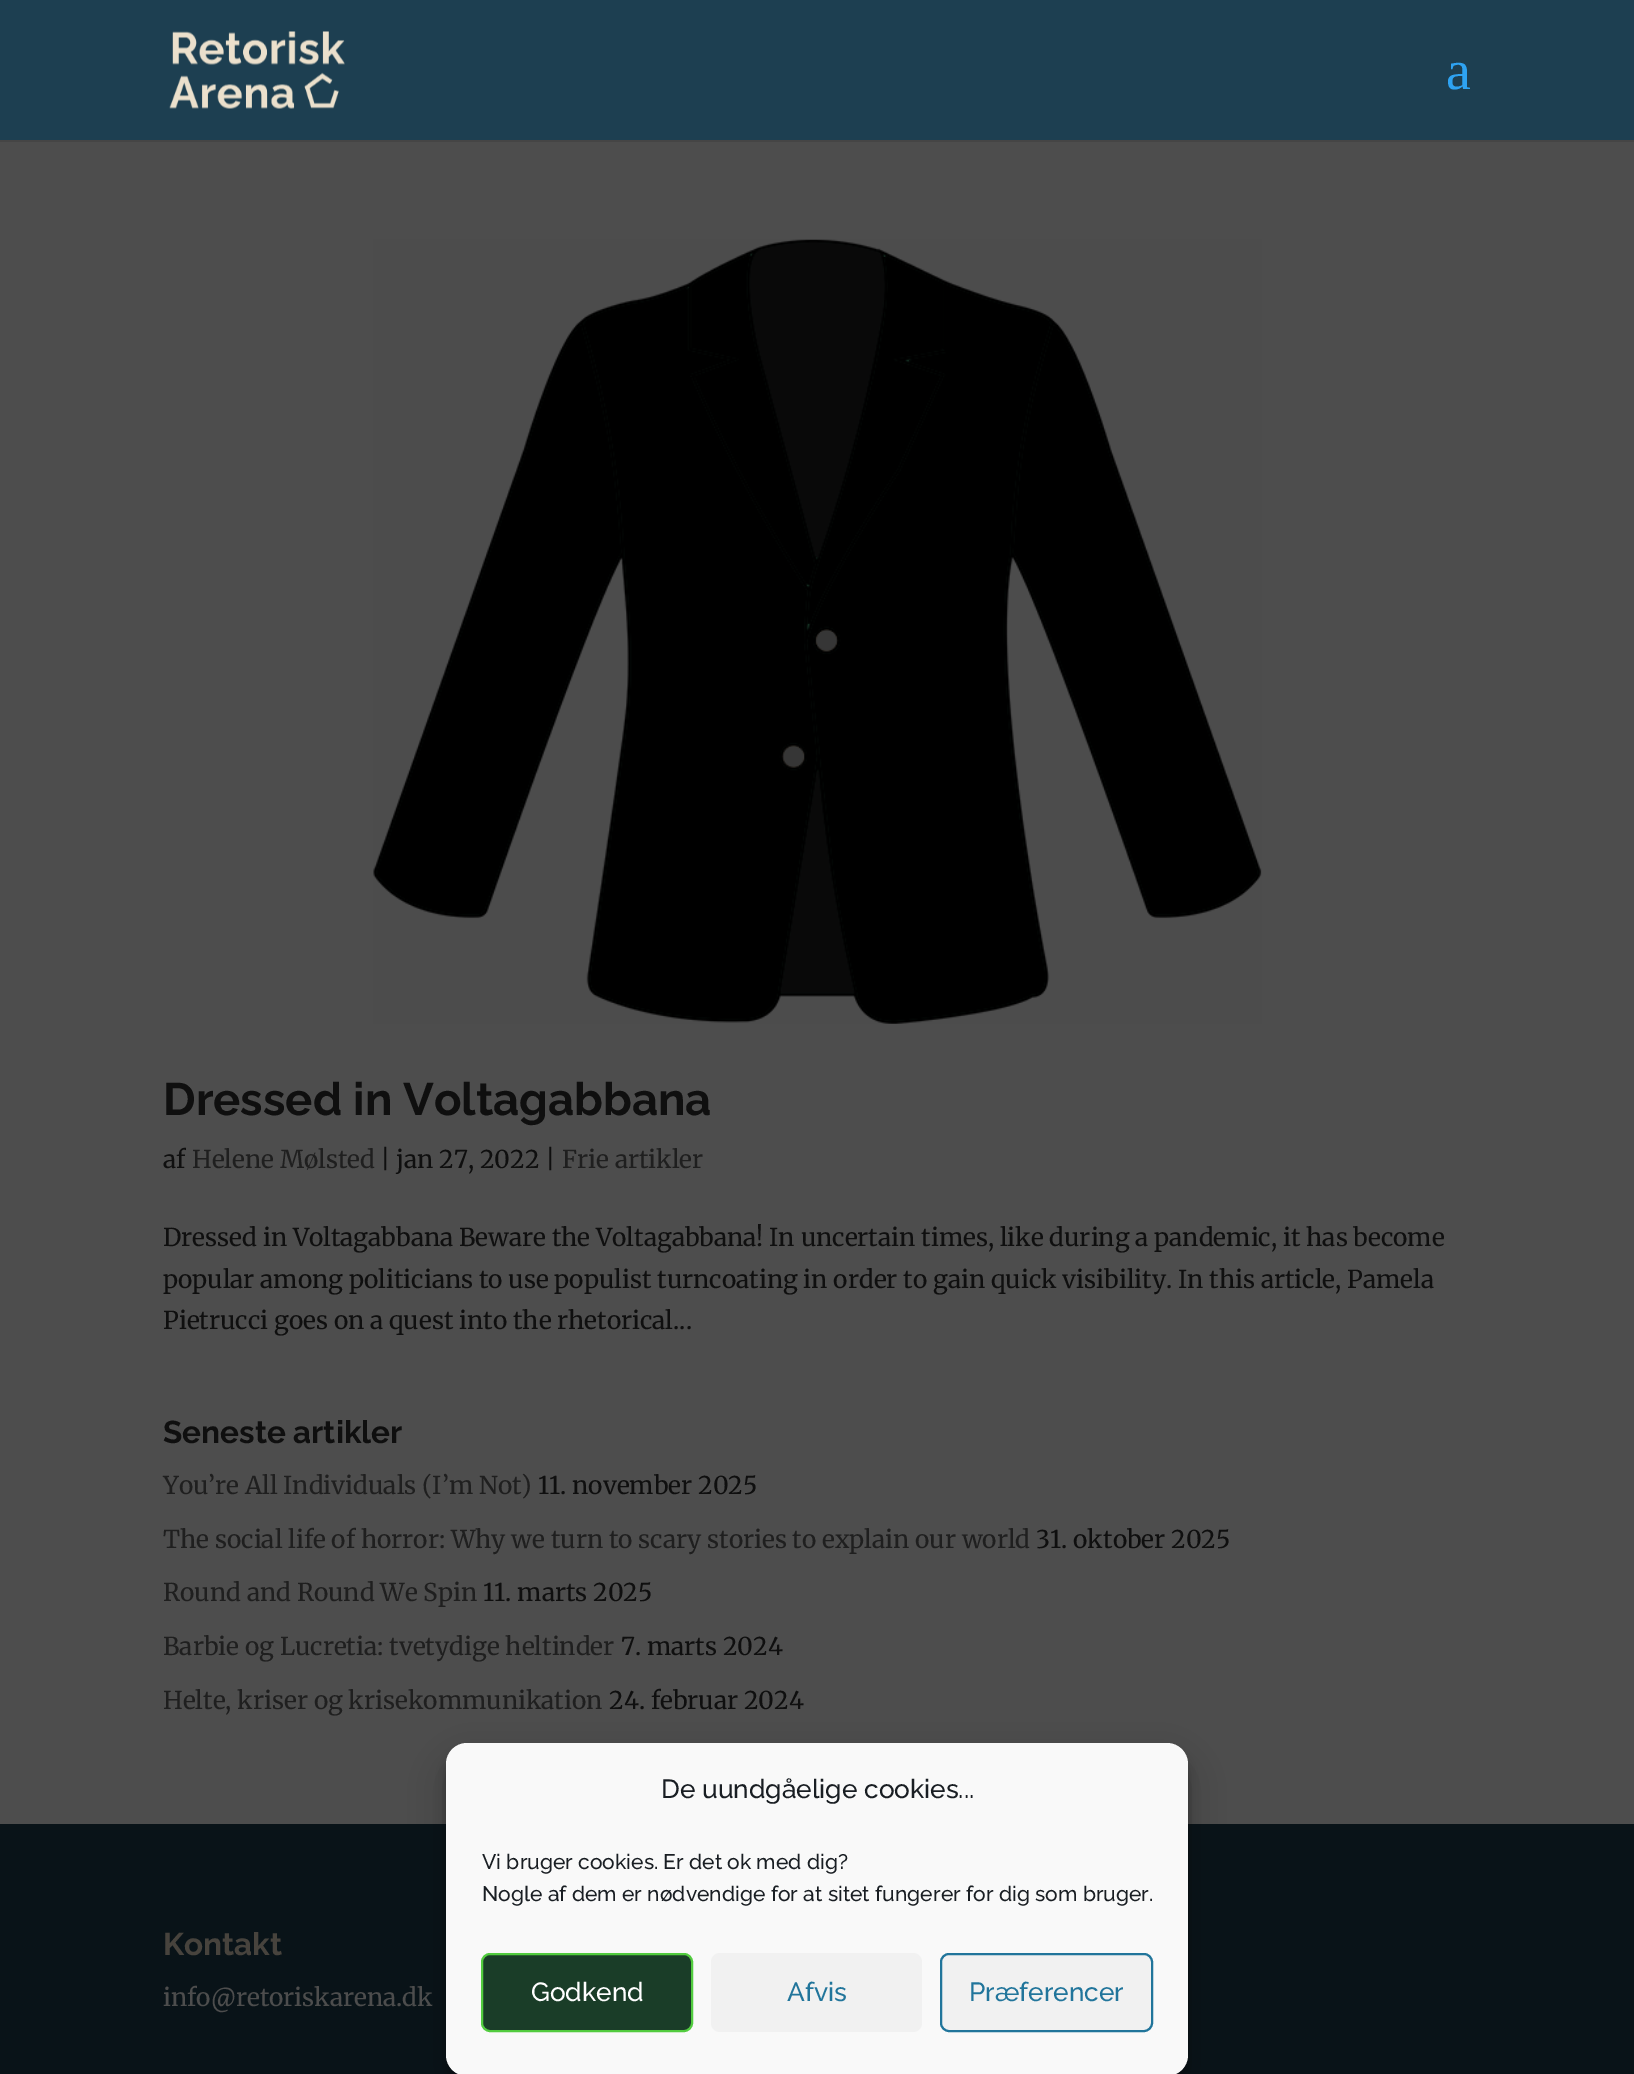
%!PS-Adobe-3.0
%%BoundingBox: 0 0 1634 2074
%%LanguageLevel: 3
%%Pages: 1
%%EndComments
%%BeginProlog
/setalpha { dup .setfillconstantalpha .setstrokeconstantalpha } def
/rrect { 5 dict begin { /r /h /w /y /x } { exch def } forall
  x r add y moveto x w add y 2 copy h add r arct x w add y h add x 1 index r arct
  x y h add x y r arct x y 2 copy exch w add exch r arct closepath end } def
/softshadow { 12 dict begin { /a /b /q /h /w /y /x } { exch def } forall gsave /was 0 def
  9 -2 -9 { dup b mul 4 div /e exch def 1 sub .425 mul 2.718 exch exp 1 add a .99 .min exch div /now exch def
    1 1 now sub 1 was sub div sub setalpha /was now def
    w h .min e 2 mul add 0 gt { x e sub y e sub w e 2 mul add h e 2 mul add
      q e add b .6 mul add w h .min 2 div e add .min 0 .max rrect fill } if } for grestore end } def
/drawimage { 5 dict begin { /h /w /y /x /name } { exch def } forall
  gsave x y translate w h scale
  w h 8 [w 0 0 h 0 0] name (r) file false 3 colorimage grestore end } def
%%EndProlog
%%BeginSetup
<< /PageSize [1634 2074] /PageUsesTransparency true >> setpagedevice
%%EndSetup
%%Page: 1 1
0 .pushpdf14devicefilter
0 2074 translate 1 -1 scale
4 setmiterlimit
0.302 setgray
0 0 1634 2074 rectfill
0.271 setgray
newpath 0 140 moveto 0 142 lineto 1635 142 lineto 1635 2 lineto 1634 2 lineto 1634 140 lineto closepath fill
0.114 0.247 0.318 setrgbcolor
0 0 1634 140 rectfill
(images/1.raw) 169 31 176 78 drawimage
(images/2.raw) 373 239 889 785 drawimage
0.035 0.075 0.094 setrgbcolor
0 1824 1634 250 rectfill
0 setgray
446 1754 742 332 21 5 0.23 softshadow
446 1761 742 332 21 17.5 0.19 softshadow
0.976 setgray
446 1743 742 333 21 rrect fill
0.102 0.239 0.157 setrgbcolor
482 1954 210 77 8 rrect gsave fill grestore
0.322 0.8 0.247 setrgbcolor
2 setlinewidth
stroke
0.945 setgray
711 1953 211 79 9 rrect fill
941 1954 211 77 8 rrect gsave fill grestore
0.129 0.459 0.608 setrgbcolor
stroke
/LiberationSerif-Regular [56 0 0 -56 0 0] selectfont
0.18 0.639 0.949 setrgbcolor
1446 89 moveto (a) show
/Raleway-Thin [45.5 0 0 -45.5 0 0] selectfont
0.059 setgray
163 1115 moveto (Dressed in Voltagabbana) show
/Merriweather-Light [24.5 0 0 -24.5 0 0] selectfont
163 1168 moveto (af) show
0.122 setgray
192 1168 moveto (Helene Mølsted) show
0.059 setgray
380 1168 moveto (| jan 27, 2022 |) show
0.122 setgray
562 1168 moveto (Frie artikler) show
0.059 setgray
163 1246 moveto (Dressed in Voltagabbana Beware the Voltagabbana! In uncertain times, like during a pandemic, it has become) show
163 1288 moveto (popular among politicians to use populist turncoating in order to gain quick visibility. In this article, Pamela) show
163 1329 moveto (Pietrucci goes on a quest into the rhetorical...) show
/Raleway-Thin [31.5 0 0 -31.5 0 0] selectfont
163 1443 moveto (Seneste artikler) show
/Merriweather-Light [24.5 0 0 -24.5 0 0] selectfont
0.122 setgray
163 1494 moveto (You’re All Individuals \(I’m Not\)) show
0.059 setgray
538 1494 moveto (11. november 2025) show
0.122 setgray
163 1548 moveto (The social life of horror: Why we turn to scary stories to explain our world) show
0.059 setgray
1036 1548 moveto (31. oktober 2025) show
0.122 setgray
163 1601 moveto (Round and Round We Spin) show
0.059 setgray
483 1601 moveto (11. marts 2025) show
0.122 setgray
163 1655 moveto (Barbie og Lucretia: tvetydige heltinder) show
0.059 setgray
621 1655 moveto (7. marts 2024) show
0.122 setgray
163 1709 moveto (Helte, kriser og krisekommunikation) show
0.059 setgray
609 1709 moveto (24. februar 2024) show
/Raleway-Thin [31.5 0 0 -31.5 0 0] selectfont
0.278 0.263 0.239 setrgbcolor
163 1955 moveto (Kontakt) show
/Merriweather-Light [24.5 0 0 -24.5 0 0] selectfont
0.302 setgray
163 2006 moveto (info@retoriskarena.dk) show
/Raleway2-Thin [26.25 0 0 -26.25 0 0] selectfont
0.098 0.118 0.137 setrgbcolor
661 1798 moveto (De uundgåelige cookies...) show
/Raleway2-Thin [21 0 0 -21 0 0] selectfont
482 1869 moveto (Vi bruger cookies. Er det ok med dig?) show
482 1901 moveto (Nogle af dem er nødvendige for at sitet fungerer for dig som bruger.) show
/Raleway2-Thin [26.25 0 0 -26.25 0 0] selectfont
1 setgray
531 2001 moveto (Godkend) show
0.129 0.459 0.608 setrgbcolor
787 2001 moveto (Afvis) show
969 2001 moveto (Præferencer) show
.poppdf14devicefilter showpage
%%EOF
